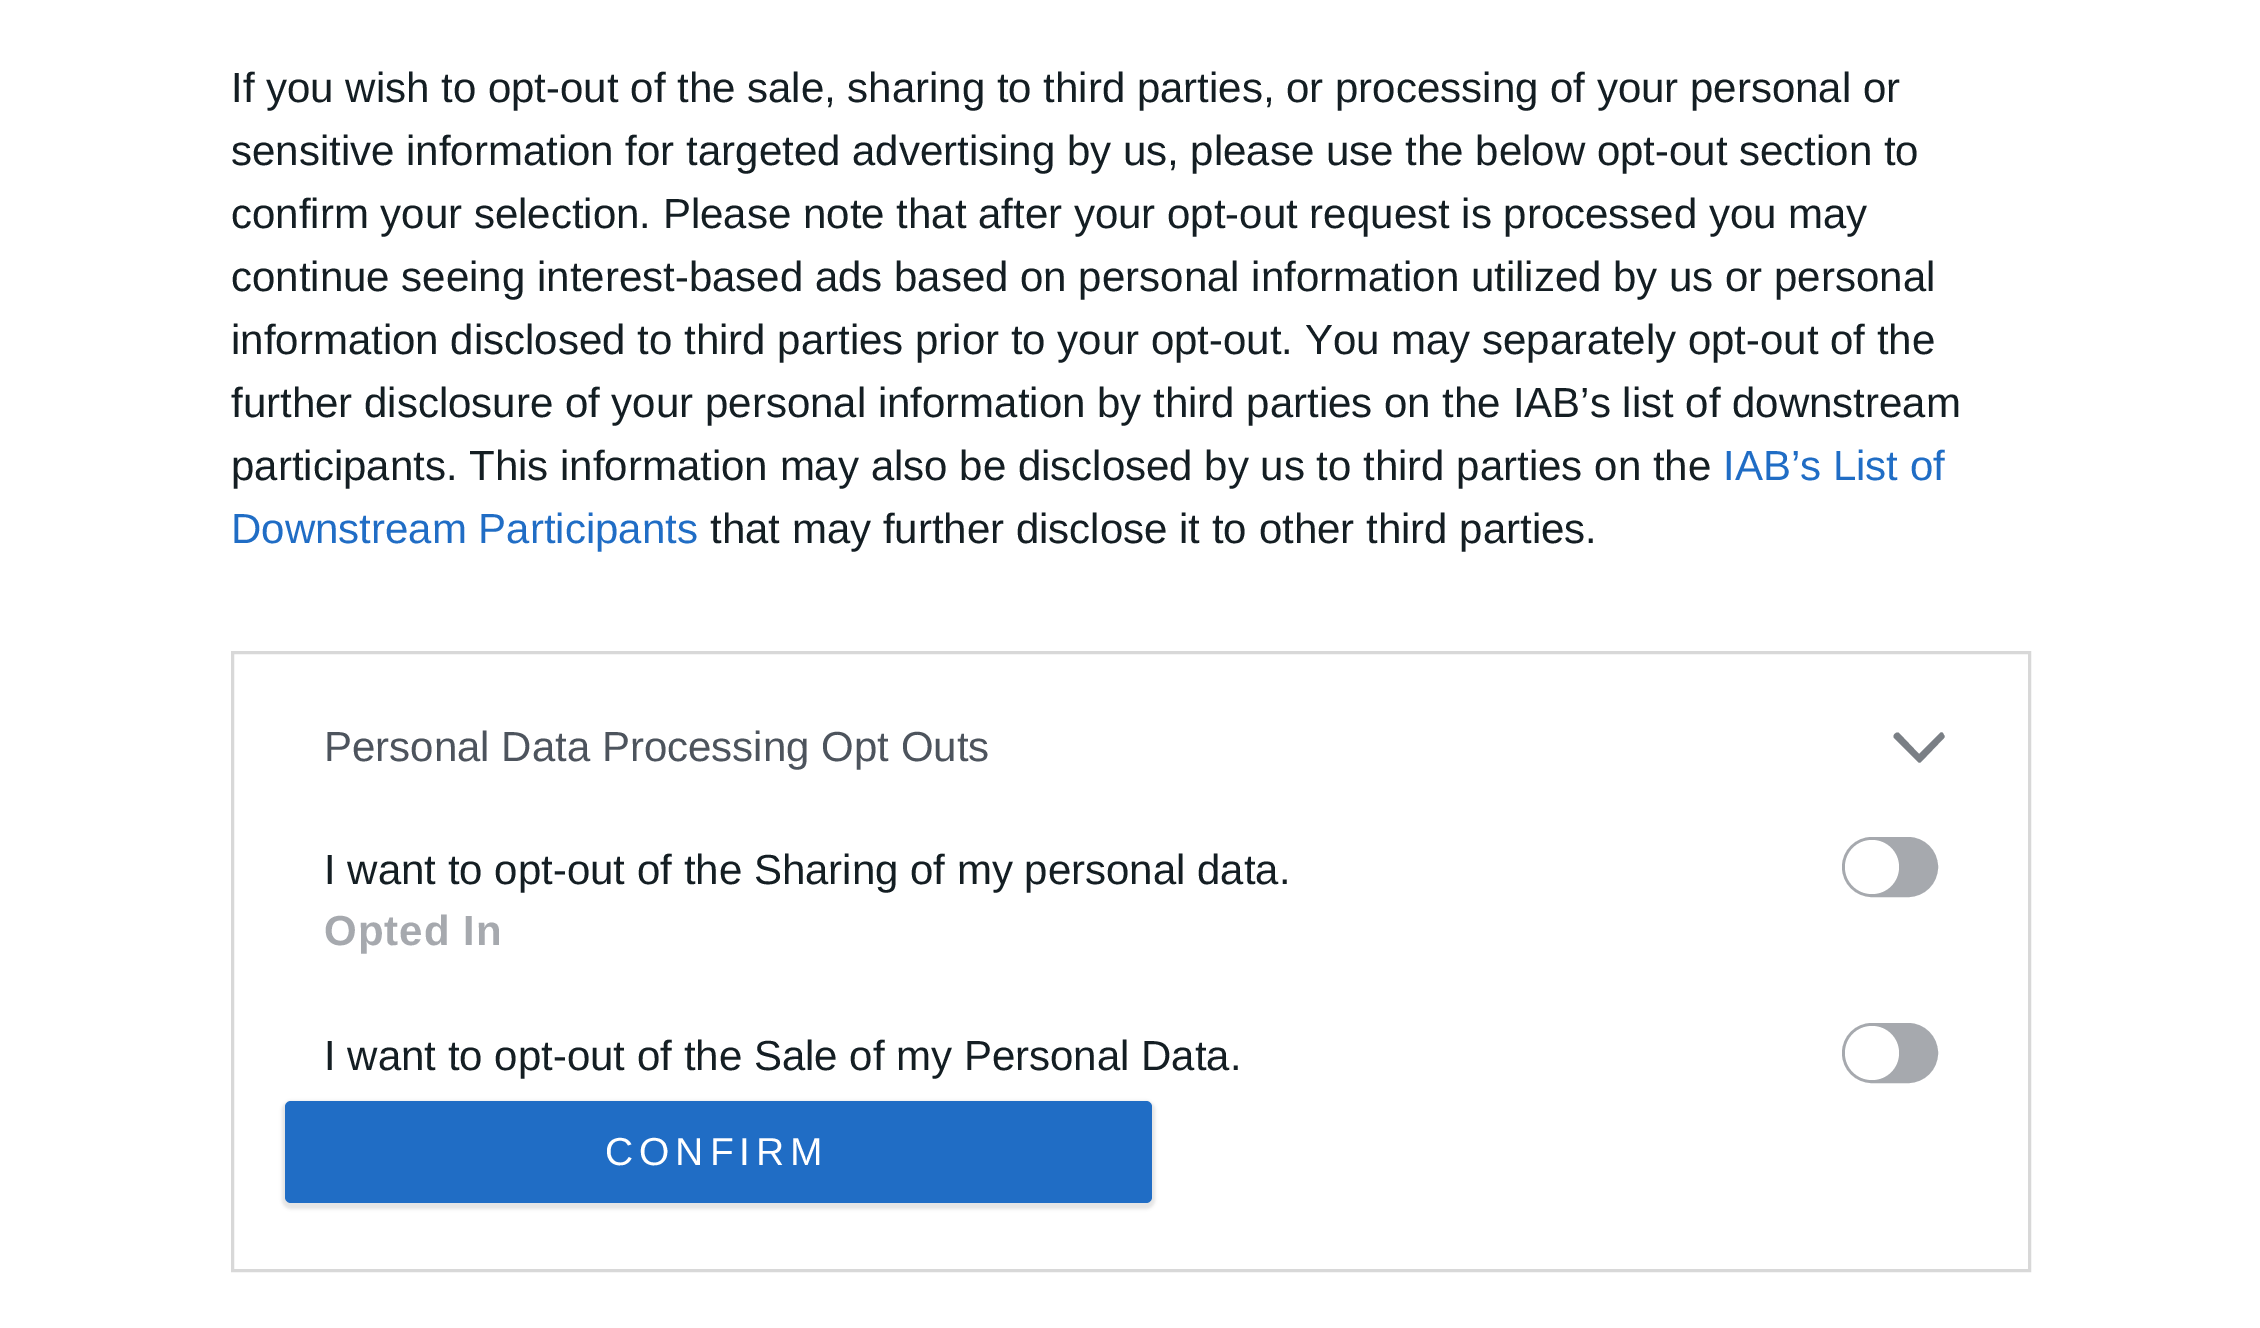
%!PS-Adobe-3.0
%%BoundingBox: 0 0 2260 1328
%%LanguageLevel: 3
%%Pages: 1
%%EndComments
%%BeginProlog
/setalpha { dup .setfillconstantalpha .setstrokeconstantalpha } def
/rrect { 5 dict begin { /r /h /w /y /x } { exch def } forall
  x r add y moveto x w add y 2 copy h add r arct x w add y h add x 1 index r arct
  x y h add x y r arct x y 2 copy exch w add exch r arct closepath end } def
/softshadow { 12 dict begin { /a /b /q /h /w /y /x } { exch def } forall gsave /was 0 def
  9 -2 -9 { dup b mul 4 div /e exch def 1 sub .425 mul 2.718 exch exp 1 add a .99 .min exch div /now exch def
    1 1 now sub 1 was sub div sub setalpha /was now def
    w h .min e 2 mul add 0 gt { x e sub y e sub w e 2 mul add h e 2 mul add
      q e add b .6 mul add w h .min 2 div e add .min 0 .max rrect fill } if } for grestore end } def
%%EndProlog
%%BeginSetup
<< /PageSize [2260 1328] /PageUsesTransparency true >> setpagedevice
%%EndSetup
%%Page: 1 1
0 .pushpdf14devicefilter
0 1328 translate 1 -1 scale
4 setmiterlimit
1 setgray
0 0 2260 1328 rectfill
0.847 setgray
3 setlinewidth
232.5 652.5 1797 618 rectstroke
0.478 0.498 0.522 setrgbcolor
newpath 1918 762 moveto 1894 738 lineto 1892 735 1897 731 1899 733 curveto 1919 754 lineto 1940 733 lineto 1941 732 1942 732 1943 733 curveto 1944 735 lineto 1945 736 1945 737 1944 738 curveto 1921 762 lineto 1920 763 1919 763 1918 762 curveto closepath fill
0.651 0.663 0.682 setrgbcolor
1843.5 838.5 93 57 28.5 rrect gsave fill grestore
stroke
1 setgray
newpath 1872 867 27 0 360 arc closepath fill
0.651 0.663 0.682 setrgbcolor
1843.5 1024.5 93 57 28.5 rrect gsave fill grestore
stroke
1 setgray
newpath 1872 1053 27 0 360 arc closepath fill
0 setgray
282 1101 873 108 9 1.5 0.1 softshadow
0.125 0.427 0.773 setrgbcolor
285 1101 867 102 6 rrect fill
/LiberationSans-Regular [42 0 0 -42 0 0] selectfont
0.078 0.118 0.137 setrgbcolor
231 102 moveto (If you wish to opt-out of the sale, sharing to third parties, or processing of your personal or) show
231 165 moveto (sensitive information for targeted advertising by us, please use the below opt-out section to) show
231 228 moveto (confirm your selection. Please note that after your opt-out request is processed you may) show
231 291 moveto (continue seeing interest-based ads based on personal information utilized by us or personal) show
231 354 moveto (information disclosed to third parties prior to your opt-out. You may separately opt-out of the) show
231 417 moveto (further disclosure of your personal information by third parties on the IAB’s list of downstream) show
231 480 moveto (participants. This information may also be disclosed by us to third parties on the) show
0.125 0.427 0.773 setrgbcolor
1723 480 moveto (IAB’s List of) show
231 543 moveto (Downstream Participants) show
0.078 0.118 0.137 setrgbcolor
710 543 moveto (that may further disclose it to other third parties.) show
0.302 0.329 0.365 setrgbcolor
324 761 moveto (Personal Data Processing Opt Outs) show
0.078 0.118 0.137 setrgbcolor
324 884 moveto (I want to opt-out of the Sharing of my personal data.) show
/LiberationSans-Bold [42 0 0 -42 0 0] selectfont
0.651 0.663 0.682 setrgbcolor
324 945 moveto 1 0 (Opted In) ashow
/LiberationSans-Regular [42 0 0 -42 0 0] selectfont
0.078 0.118 0.137 setrgbcolor
324 1070 moveto (I want to opt-out of the Sale of my Personal Data.) show
/LiberationSans-Regular [39 0 0 -39 0 0] selectfont
1 setgray
605 1165 moveto 6 0 (CONFIRM) ashow
.poppdf14devicefilter showpage
%%EOF
